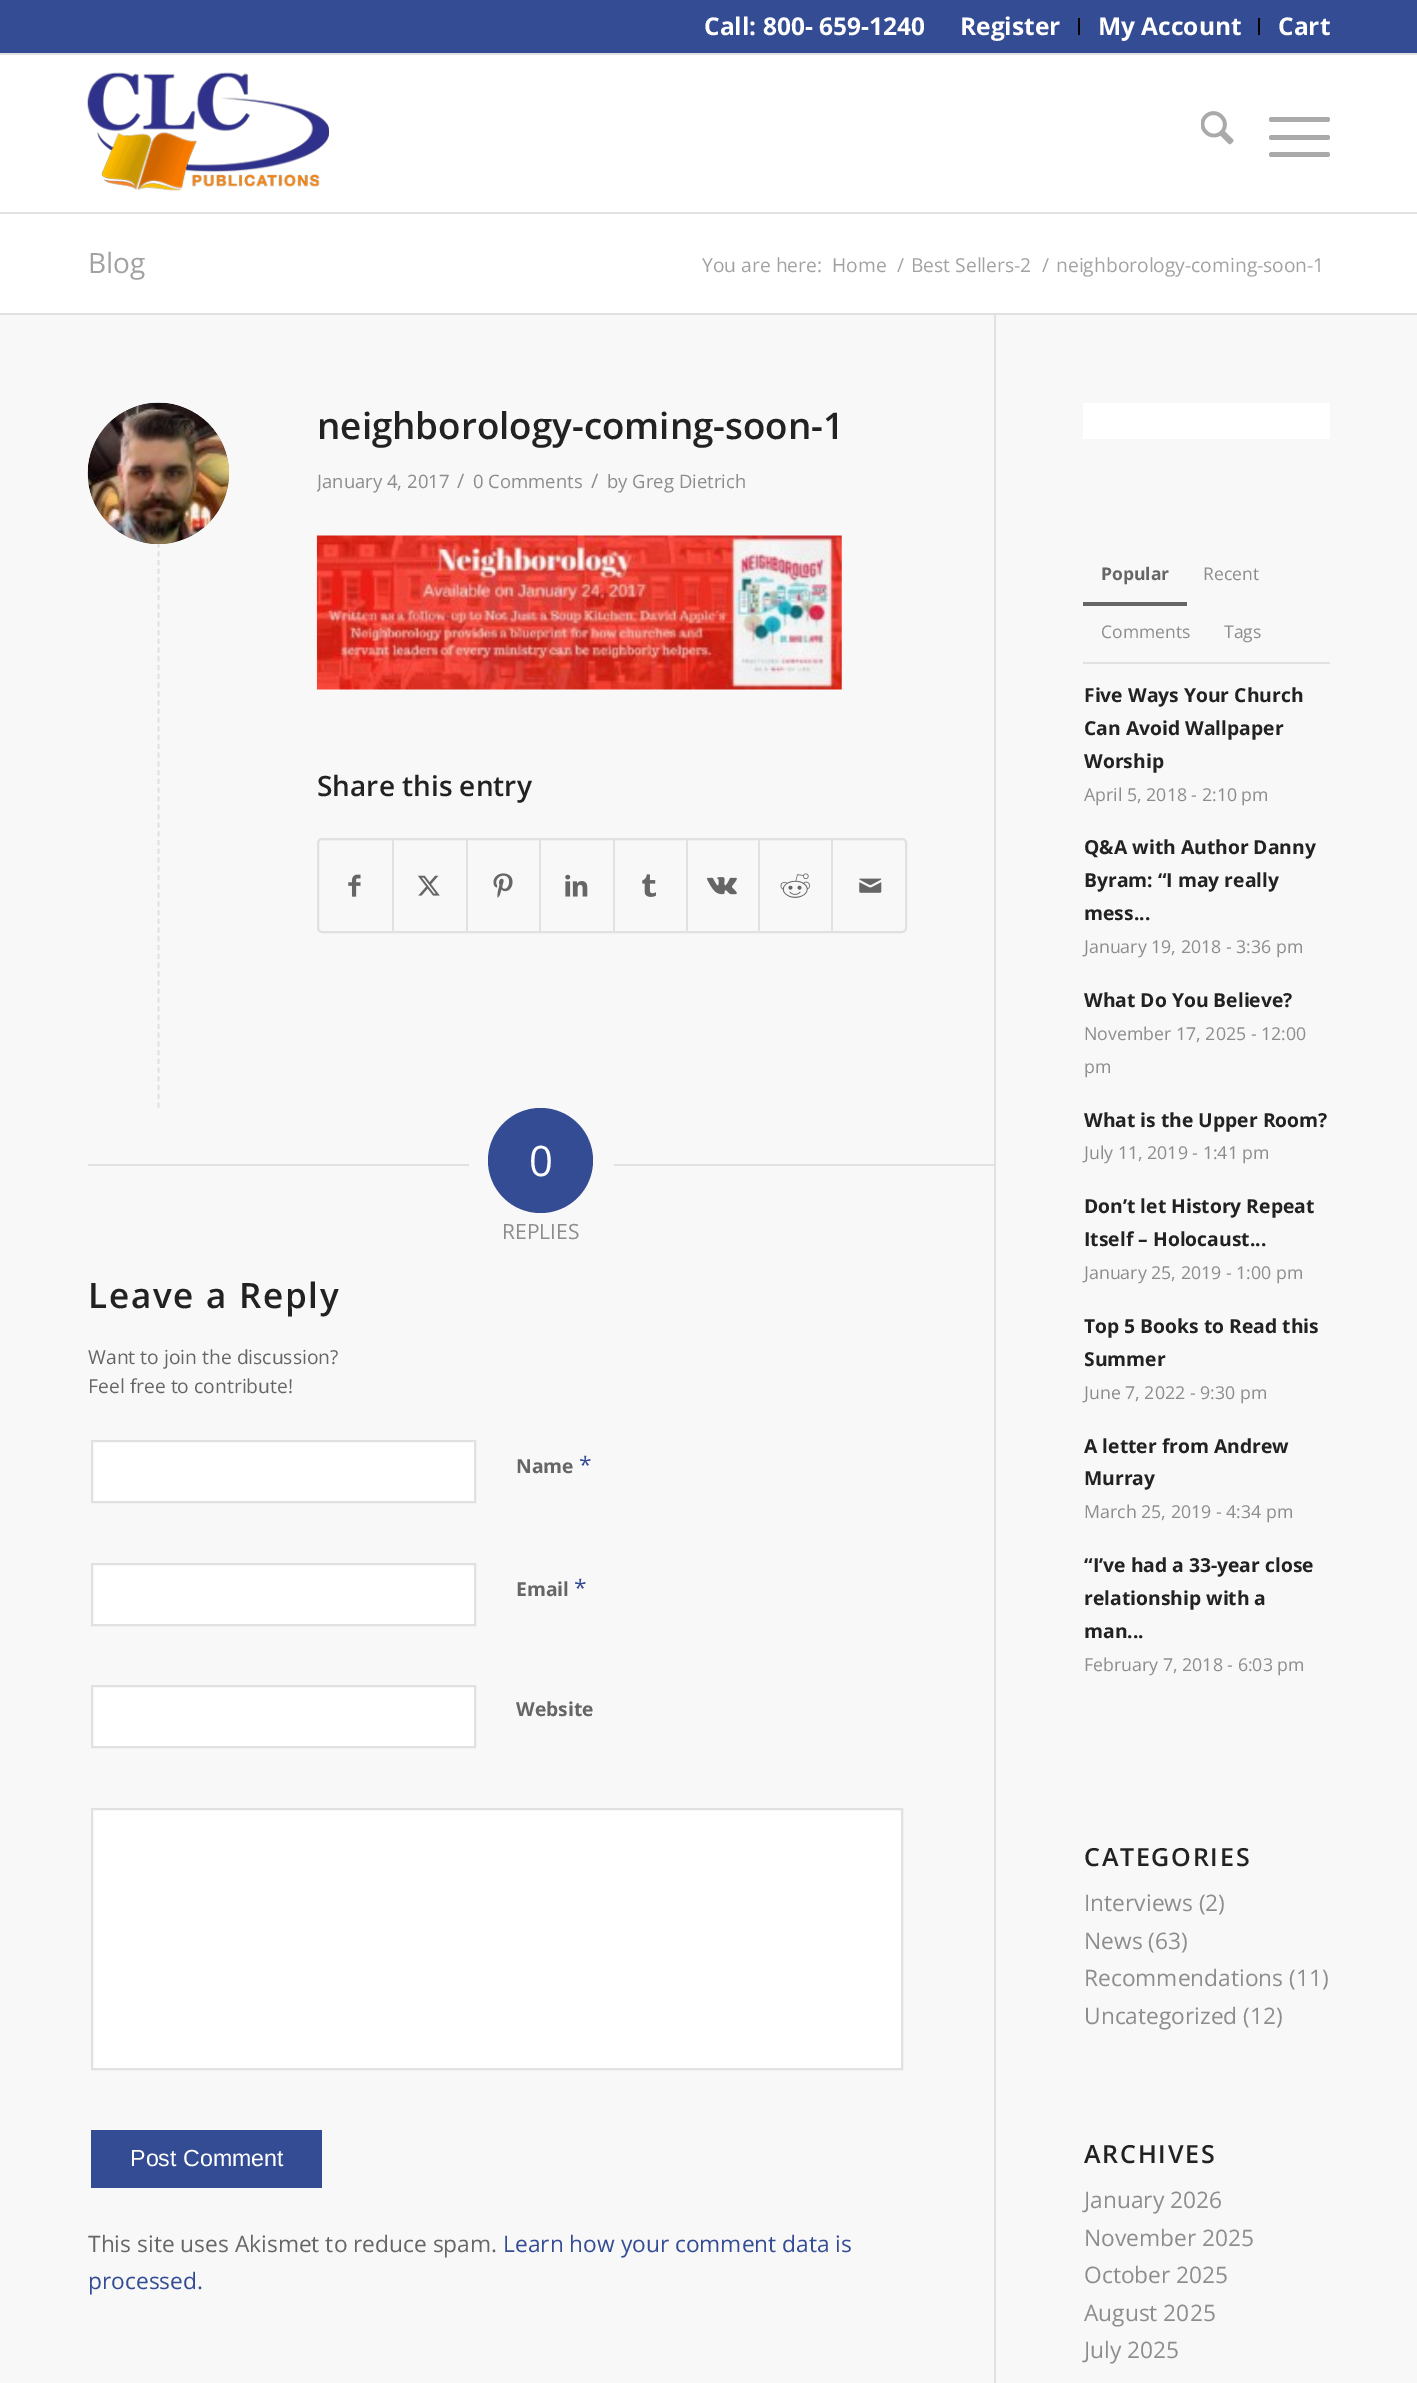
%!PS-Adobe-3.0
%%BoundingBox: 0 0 1417 2383
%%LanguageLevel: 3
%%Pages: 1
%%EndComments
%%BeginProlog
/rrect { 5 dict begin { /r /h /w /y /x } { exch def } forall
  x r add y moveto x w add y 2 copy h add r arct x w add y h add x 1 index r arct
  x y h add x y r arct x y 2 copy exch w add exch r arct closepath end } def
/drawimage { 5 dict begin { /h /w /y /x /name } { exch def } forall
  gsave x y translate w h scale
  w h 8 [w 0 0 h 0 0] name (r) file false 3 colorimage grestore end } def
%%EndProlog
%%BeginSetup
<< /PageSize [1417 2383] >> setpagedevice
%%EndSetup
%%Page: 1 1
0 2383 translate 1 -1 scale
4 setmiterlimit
1 setgray
0 0 1417 2383 rectfill
0.204 0.298 0.576 setrgbcolor
0 0 1417 53 rectfill
0.882 setgray
0 53 1417 2 rectfill
0.012 setgray
1078 18 2 17 rectfill
1258 18 2 17 rectfill
0.882 setgray
0 212 1417 2 rectfill
(images/1.raw) 87 72 242 119 drawimage
(images/2.raw) 1201 111 33 34 drawimage
0.667 setgray
1269 135 61 5 2.5 rrect fill
1269 117 61 5 2.5 rrect fill
1269 152 61 5 2.5 rrect fill
0.973 setgray
0 315 1417 2068 rectfill
0.882 setgray
0 313 1417 2 rectfill
994 315 2 2068 rectfill
1.8 setlinewidth
[5.25 3.5] 0 setdash
newpath 158.5 402.5 moveto 158.5 1108 lineto stroke
0.553 setgray
newpath 158.5 473.5 70.5 0 360 arc closepath fill
(images/3.raw) 87 402 142 142 drawimage
(images/4.raw) 316 535 526 155 drawimage
0.882 setgray
2 setlinewidth
[] 0 setdash
318 839 588 93 4 rrect stroke
(images/5.raw) 348 874 13 23 drawimage
392 840 2 91 rectfill
(images/6.raw) 417 875 23 21 drawimage
466 840 2 91 rectfill
(images/7.raw) 493 873 20 25 drawimage
539 840 2 91 rectfill
(images/8.raw) 565 874 23 23 drawimage
613 840 2 91 rectfill
(images/9.raw) 642 874 14 23 drawimage
686 840 2 91 rectfill
(images/10.raw) 707 877 30 18 drawimage
758 840 2 91 rectfill
(images/11.raw) 780 873 30 25 drawimage
831 840 2 91 rectfill
(images/12.raw) 859 878 23 15 drawimage
88 1164 381 2 rectfill
0.204 0.298 0.576 setrgbcolor
newpath 540.5 1160.5 52.5 0 360 arc closepath fill
0.882 setgray
614 1164 380 2 rectfill
1 setgray
newpath 92 1441 moveto 475 1441 lineto 475 1502 lineto 92 1502 lineto closepath gsave fill grestore
0.882 setgray
stroke
1 setgray
newpath 92 1564 moveto 475 1564 lineto 475 1625 lineto 92 1625 lineto closepath gsave fill grestore
0.882 setgray
stroke
1 setgray
newpath 92 1686 moveto 475 1686 lineto 475 1747 lineto 92 1747 lineto closepath gsave fill grestore
0.882 setgray
stroke
1 setgray
newpath 92 1809 moveto 902 1809 lineto 902 2069 lineto 92 2069 lineto closepath gsave fill grestore
0.882 setgray
stroke
0.204 0.298 0.576 setrgbcolor
91 2130 231 58 rectfill
1 setgray
1083 403 247 36 rectfill
0.882 setgray
1083 662 247 2 rectfill
0.4 setgray
1083 602 104 4 rectfill
/OpenSans-Bold [24.5 0 0 -24.5 0 0] selectfont
1 setgray
704 35 moveto (Call: 800- 659-1240) show
960 35 moveto (Register) show
1098 35 moveto (My Account) show
1278 35 moveto (Cart) show
/OpenSans-Regular [28 0 0 -28 0 0] selectfont
0.635 setgray
88 273 moveto (Blog) show
/OpenSans-Regular [19.25 0 0 -19.25 0 0] selectfont
702 272 moveto (You are here:) show
832 272 moveto (Home) show
897 272 moveto (/) show
911 272 moveto (Best Sellers-2) show
1042 272 moveto (/) show
1056 272 moveto (neighborology-coming-soon-1) show
/OpenSans-SemiBold [36.75 0 0 -36.75 0 0] selectfont
0.133 setgray
317 439 moveto (neighborology-coming-soon-1) show
gsave
317 403 677 705 rectclip
/OpenSans-Regular [18.5 0 0 -18.5 0 0] selectfont
0.553 setgray
317 488 moveto (January 4, 2017) show
grestore
/OpenSans-Regular [20 0 0 -20 0 0] selectfont
0.553 setgray
457 488 moveto (/) show
/OpenSans-Regular [18.5 0 0 -18.5 0 0] selectfont
473 488 moveto (0 Comments) show
/OpenSans-Regular [20 0 0 -20 0 0] selectfont
591 488 moveto (/) show
/OpenSans-Regular [18.5 0 0 -18.5 0 0] selectfont
607 488 moveto (by Greg Dietrich) show
/OpenSans-SemiBold [28 0 0 -28 0 0] selectfont
0.133 setgray
317 796 moveto (Share this entry) show
/OpenSans-Regular [42 0 0 -42 0 0] selectfont
1 setgray
529 1176 moveto (0) show
/OpenSans-Regular [21 0 0 -21 0 0] selectfont
0.553 setgray
502 1239 moveto (REPLIES) show
/OpenSans-SemiBold [35 0 0 -35 0 0] selectfont
0.133 setgray
88 1308 moveto 1.75 0 (Leave a Reply) ashow
/OpenSans-Regular [19.3 0 0 -19.3 0 0] selectfont
0.4 setgray
88 1364 moveto (Want to join the discussion?) show
88 1393 moveto (Feel free to contribute!) show
/OpenSans-Bold [19.25 0 0 -19.25 0 0] selectfont
516 1473 moveto (Name) show
/OpenSans-Regular [22.75 0 0 -22.75 0 0] selectfont
0.204 0.298 0.576 setrgbcolor
579 1473 moveto (*) show
/OpenSans-Bold [19.25 0 0 -19.25 0 0] selectfont
0.4 setgray
516 1596 moveto (Email) show
/OpenSans-Regular [22.75 0 0 -22.75 0 0] selectfont
0.204 0.298 0.576 setrgbcolor
574 1596 moveto (*) show
/OpenSans-Bold [19.25 0 0 -19.25 0 0] selectfont
0.4 setgray
516 1716 moveto (Website) show
/LiberationSans-Regular [23.25 0 0 -23.25 0 0] selectfont
1 setgray
130 2166 moveto (Post Comment) show
/OpenSans-Regular [22.75 0 0 -22.75 0 0] selectfont
0.4 setgray
88 2252 moveto (This site uses Akismet to reduce spam.) show
0.204 0.298 0.576 setrgbcolor
503 2252 moveto (Learn how your comment data is) show
88 2289 moveto (processed.) show
/OpenSans-Bold [17.5 0 0 -17.5 0 0] selectfont
0.4 setgray
1101 580 moveto (Popular) show
/OpenSans-Regular [17.5 0 0 -17.5 0 0] selectfont
0.553 setgray
1203 580 moveto (Recent) show
1101 638 moveto (Comments) show
1224 638 moveto (Tags) show
/OpenSans-Bold [19.3 0 0 -19.3 0 0] selectfont
0.133 setgray
1084 702 moveto (Five Ways Your Church) show
1084 735 moveto (Can Avoid Wallpaper) show
1084 768 moveto (Worship) show
/OpenSans-Regular [17.75 0 0 -17.75 0 0] selectfont
0.553 setgray
1084 801 moveto (April 5, 2018 - 2:10 pm) show
/OpenSans-Bold [19.3 0 0 -19.3 0 0] selectfont
0.133 setgray
1084 854 moveto (Q&A with Author Danny) show
1084 887 moveto (Byram: “I may really) show
1084 920 moveto (mess...) show
/OpenSans-Regular [17.75 0 0 -17.75 0 0] selectfont
0.553 setgray
1084 953 moveto (January 19, 2018 - 3:36 pm) show
/OpenSans-Bold [19.3 0 0 -19.3 0 0] selectfont
0.133 setgray
1084 1007 moveto (What Do You Believe?) show
/OpenSans-Regular [17.75 0 0 -17.75 0 0] selectfont
0.553 setgray
1084 1040 moveto (November 17, 2025 - 12:00) show
1084 1073 moveto (pm) show
/OpenSans-Bold [19.3 0 0 -19.3 0 0] selectfont
0.133 setgray
1084 1127 moveto (What is the Upper Room?) show
/OpenSans-Regular [17.75 0 0 -17.75 0 0] selectfont
0.553 setgray
1084 1159 moveto (July 11, 2019 - 1:41 pm) show
/OpenSans-Bold [19.3 0 0 -19.3 0 0] selectfont
0.133 setgray
1084 1213 moveto (Don’t let History Repeat) show
1084 1246 moveto (Itself – Holocaust...) show
/OpenSans-Regular [17.75 0 0 -17.75 0 0] selectfont
0.553 setgray
1084 1279 moveto (January 25, 2019 - 1:00 pm) show
/OpenSans-Bold [19.3 0 0 -19.3 0 0] selectfont
0.133 setgray
1084 1333 moveto (Top 5 Books to Read this) show
1084 1366 moveto (Summer) show
/OpenSans-Regular [17.75 0 0 -17.75 0 0] selectfont
0.553 setgray
1084 1399 moveto (June 7, 2022 - 9:30 pm) show
/OpenSans-Bold [19.3 0 0 -19.3 0 0] selectfont
0.133 setgray
1084 1453 moveto (A letter from Andrew) show
1084 1485 moveto (Murray) show
/OpenSans-Regular [17.75 0 0 -17.75 0 0] selectfont
0.553 setgray
1084 1518 moveto (March 25, 2019 - 4:34 pm) show
/OpenSans-Bold [19.3 0 0 -19.3 0 0] selectfont
0.133 setgray
1084 1572 moveto (“I’ve had a 33-year close) show
1084 1605 moveto (relationship with a) show
1084 1638 moveto (man...) show
/OpenSans-Regular [17.75 0 0 -17.75 0 0] selectfont
0.553 setgray
1084 1671 moveto (February 7, 2018 - 6:03 pm) show
/OpenSans-SemiBold [25 0 0 -25 0 0] selectfont
0.133 setgray
1084 1866 moveto 1.75 0 (CATEGORIES) ashow
/OpenSans-Regular [22.75 0 0 -22.75 0 0] selectfont
0.553 setgray
1084 1911 moveto (Interviews \(2\)) show
1084 1949 moveto (News \(63\)) show
1084 1986 moveto (Recommendations \(11\)) show
1084 2024 moveto (Uncategorized \(12\)) show
/OpenSans-SemiBold [25 0 0 -25 0 0] selectfont
0.133 setgray
1084 2163 moveto 1.75 0 (ARCHIVES) ashow
/OpenSans-Regular [22.75 0 0 -22.75 0 0] selectfont
0.553 setgray
1084 2208 moveto (January 2026) show
1084 2246 moveto (November 2025) show
1084 2283 moveto (October 2025) show
1084 2321 moveto (August 2025) show
1084 2358 moveto (July 2025) show
showpage
%%EOF
